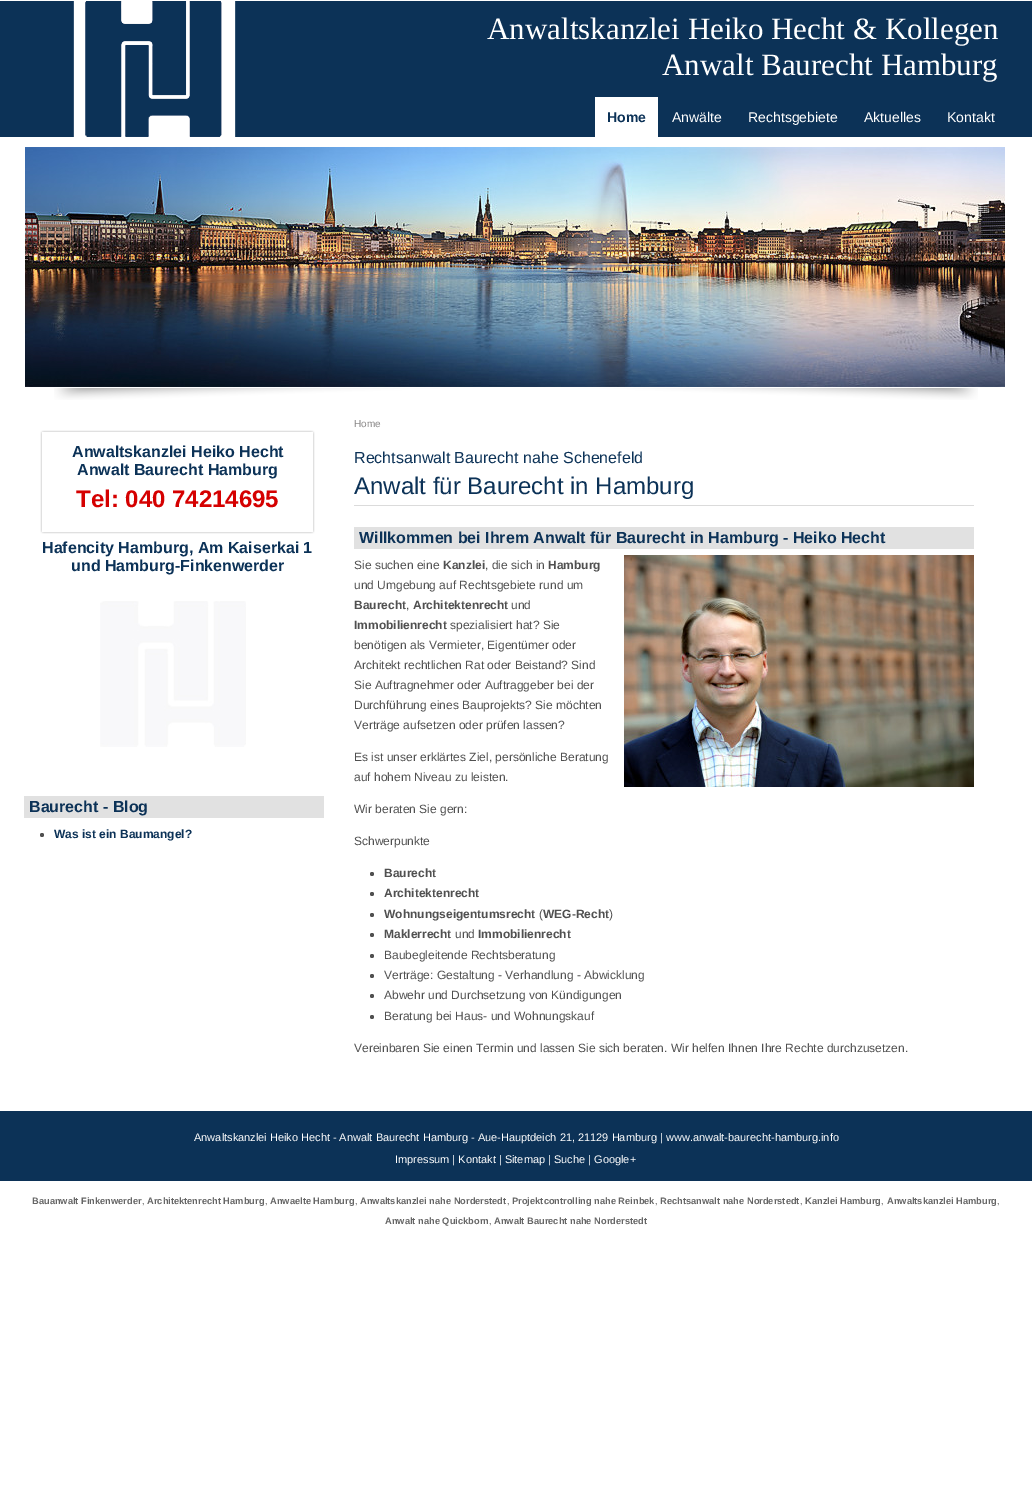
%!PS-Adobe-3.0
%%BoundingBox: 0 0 1032 1507
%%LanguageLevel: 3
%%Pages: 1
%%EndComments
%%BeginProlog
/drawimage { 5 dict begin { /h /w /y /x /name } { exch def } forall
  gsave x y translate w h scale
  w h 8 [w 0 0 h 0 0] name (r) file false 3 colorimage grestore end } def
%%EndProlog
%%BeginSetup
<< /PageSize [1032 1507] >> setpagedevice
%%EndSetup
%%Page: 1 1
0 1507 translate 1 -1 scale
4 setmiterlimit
1 setgray
0 0 1032 1507 rectfill
0.047 0.196 0.341 setrgbcolor
0 1 1032 136 rectfill
(images/1.raw) 73 1 163 136 drawimage
1 setgray
595 97 63 40 rectfill
(images/2.raw) 25 147 980 240 drawimage
(images/3.raw) 54 388 924 12 drawimage
(images/4.raw) 40 430 275 104 drawimage
(images/5.raw) 100 601 146 146 drawimage
0.882 setgray
24 796 300 22 rectfill
0.314 setgray
newpath 42 835 2 0 360 arc closepath fill
0.859 setgray
354 505 620 1 rectfill
0.882 setgray
354 527 620 22 rectfill
(images/6.raw) 624 555 350 232 drawimage
0.314 setgray
newpath 372 874 2 0 360 arc closepath fill
newpath 372 894 2 0 360 arc closepath fill
newpath 372 915 2 0 360 arc closepath fill
newpath 372 935 2 0 360 arc closepath fill
newpath 372 956 2 0 360 arc closepath fill
newpath 372 976 2 0 360 arc closepath fill
newpath 372 996 2 0 360 arc closepath fill
newpath 372 1017 2 0 360 arc closepath fill
0.047 0.196 0.341 setrgbcolor
0 1111 1032 70 rectfill
/LiberationSerif-Regular [31 0 0 -31 0 0] selectfont
1 setgray
487 39 moveto (Anwaltskanzlei Heiko Hecht & Kollegen) show
662 75 moveto (Anwalt Baurecht Hamburg) show
/LiberationSans-Bold [14 0 0 -14 0 0] selectfont
0.047 0.196 0.341 setrgbcolor
607 122 moveto (Home) show
/LiberationSans-Regular [14 0 0 -14 0 0] selectfont
1 setgray
672 122 moveto (Anwälte) show
748 122 moveto (Rechtsgebiete) show
864 122 moveto (Aktuelles) show
947 122 moveto (Kontakt) show
/LiberationSans-Bold [16 0 0 -16 0 0] selectfont
0.047 0.196 0.341 setrgbcolor
72 457 moveto (Anwaltskanzlei Heiko Hecht) show
77 475 moveto (Anwalt Baurecht Hamburg) show
/LiberationSans-Bold [24 0 0 -24 0 0] selectfont
0.835 0 0 setrgbcolor
76 507 moveto (Tel: 040 74214695) show
/LiberationSans-Bold [16 0 0 -16 0 0] selectfont
0.047 0.196 0.341 setrgbcolor
42 553 moveto (Hafencity Hamburg, Am Kaiserkai 1) show
71 571 moveto (und Hamburg-Finkenwerder) show
29 812 moveto (Baurecht - Blog) show
/LiberationSans-Bold [12 0 0 -12 0 0] selectfont
54 838 moveto (Was ist ein Baumangel?) show
/LiberationSans-Regular [10 0 0 -10 0 0] selectfont
0.545 0.537 0.537 setrgbcolor
354 427 moveto (Home) show
/LiberationSans-Regular [16 0 0 -16 0 0] selectfont
0.047 0.196 0.341 setrgbcolor
354 463 moveto (Rechtsanwalt Baurecht nahe Schenefeld) show
/LiberationSans-Regular [24 0 0 -24 0 0] selectfont
354 494 moveto (Anwalt für Baurecht in Hamburg) show
/LiberationSans-Bold [16 0 0 -16 0 0] selectfont
359 543 moveto (Willkommen bei Ihrem Anwalt für Baurecht in Hamburg - Heiko Hecht) show
/LiberationSans-Regular [12 0 0 -12 0 0] selectfont
0.314 setgray
354 569 moveto (Sie suchen eine) show
/LiberationSans-Bold [12 0 0 -12 0 0] selectfont
443 569 moveto (Kanzlei) show
/LiberationSans-Regular [12 0 0 -12 0 0] selectfont
485 569 moveto (, die sich in) show
/LiberationSans-Bold [12 0 0 -12 0 0] selectfont
548 569 moveto (Hamburg) show
/LiberationSans-Regular [12 0 0 -12 0 0] selectfont
354 589 moveto (und Umgebung auf Rechtsgebiete rund um) show
/LiberationSans-Bold [12 0 0 -12 0 0] selectfont
354 609 moveto (Baurecht) show
/LiberationSans-Regular [12 0 0 -12 0 0] selectfont
406 609 moveto (,) show
/LiberationSans-Bold [12 0 0 -12 0 0] selectfont
413 609 moveto (Architektenrecht) show
/LiberationSans-Regular [12 0 0 -12 0 0] selectfont
511 609 moveto (und) show
/LiberationSans-Bold [12 0 0 -12 0 0] selectfont
354 629 moveto (Immobilienrecht) show
/LiberationSans-Regular [12 0 0 -12 0 0] selectfont
450 629 moveto (spezialisiert hat? Sie) show
354 649 moveto (benötigen als Vermieter, Eigentümer oder) show
354 669 moveto (Architekt rechtlichen Rat oder Beistand? Sind) show
354 689 moveto (Sie Auftragnehmer oder Auftraggeber bei der) show
354 709 moveto (Durchführung eines Bauprojekts? Sie möchten) show
354 729 moveto (Verträge aufsetzen oder prüfen lassen?) show
354 761 moveto (Es ist unser erklärtes Ziel, persönliche Beratung) show
354 781 moveto (auf hohem Niveau zu leisten.) show
354 813 moveto (Wir beraten Sie gern:) show
354 845 moveto (Schwerpunkte) show
/LiberationSans-Bold [12 0 0 -12 0 0] selectfont
384 877 moveto (Baurecht) show
384 897 moveto (Architektenrecht) show
384 918 moveto (Wohnungseigentumsrecht) show
/LiberationSans-Regular [12 0 0 -12 0 0] selectfont
539 918 moveto (\() show
/LiberationSans-Bold [12 0 0 -12 0 0] selectfont
543 918 moveto (WEG-Recht) show
/LiberationSans-Regular [12 0 0 -12 0 0] selectfont
609 918 moveto (\)) show
/LiberationSans-Bold [12 0 0 -12 0 0] selectfont
384 938 moveto (Maklerrecht) show
/LiberationSans-Regular [12 0 0 -12 0 0] selectfont
455 938 moveto (und) show
/LiberationSans-Bold [12 0 0 -12 0 0] selectfont
478 938 moveto (Immobilienrecht) show
/LiberationSans-Regular [12 0 0 -12 0 0] selectfont
384 959 moveto (Baubegleitende Rechtsberatung) show
384 979 moveto (Verträge: Gestaltung - Verhandlung - Abwicklung) show
384 999 moveto (Abwehr und Durchsetzung von Kündigungen) show
384 1020 moveto (Beratung bei Haus- und Wohnungskauf) show
354 1052 moveto (Vereinbaren Sie einen Termin und lassen Sie sich beraten. Wir helfen Ihnen Ihre Rechte durchzusetzen.) show
/LiberationSans-Regular [11 0 0 -11 0 0] selectfont
1 setgray
194 1141 moveto (Anwaltskanzlei Heiko Hecht - Anwalt Baurecht Hamburg - Aue-Hauptdeich 21, 21129 Hamburg | www.anwalt-baurecht-hamburg.info) show
395 1163 moveto (Impressum | Kontakt | Sitemap | Suche | Google+) show
/LiberationSans-Bold [9.3 0 0 -9.3 0 0] selectfont
0.4 setgray
32 1204 moveto (Bauanwalt Finkenwerder) show
/LiberationSans-Regular [9.3 0 0 -9.3 0 0] selectfont
142 1204 moveto (,) show
/LiberationSans-Bold [9.3 0 0 -9.3 0 0] selectfont
147 1204 moveto (Architektenrecht Hamburg) show
/LiberationSans-Regular [9.3 0 0 -9.3 0 0] selectfont
265 1204 moveto (,) show
/LiberationSans-Bold [9.3 0 0 -9.3 0 0] selectfont
270 1204 moveto (Anwaelte Hamburg) show
/LiberationSans-Regular [9.3 0 0 -9.3 0 0] selectfont
355 1204 moveto (,) show
/LiberationSans-Bold [9.3 0 0 -9.3 0 0] selectfont
360 1204 moveto (Anwaltskanzlei nahe Norderstedt) show
/LiberationSans-Regular [9.3 0 0 -9.3 0 0] selectfont
507 1204 moveto (,) show
/LiberationSans-Bold [9.3 0 0 -9.3 0 0] selectfont
512 1204 moveto (Projektcontrolling nahe Reinbek) show
/LiberationSans-Regular [9.3 0 0 -9.3 0 0] selectfont
655 1204 moveto (,) show
/LiberationSans-Bold [9.3 0 0 -9.3 0 0] selectfont
660 1204 moveto (Rechtsanwalt nahe Norderstedt) show
805 1204 moveto (Kanzlei Hamburg) show
887 1204 moveto (Anwaltskanzlei Hamburg) show
/LiberationSans-Regular [9.3 0 0 -9.3 0 0] selectfont
800 1204 moveto (,) show
881 1204 moveto (,) show
997 1204 moveto (,) show
/LiberationSans-Bold [9.3 0 0 -9.3 0 0] selectfont
385 1224 moveto (Anwalt nahe Quickborn) show
/LiberationSans-Regular [9.3 0 0 -9.3 0 0] selectfont
489 1224 moveto (,) show
/LiberationSans-Bold [9.3 0 0 -9.3 0 0] selectfont
494 1224 moveto (Anwalt Baurecht nahe Norderstedt) show
showpage
%%EOF
